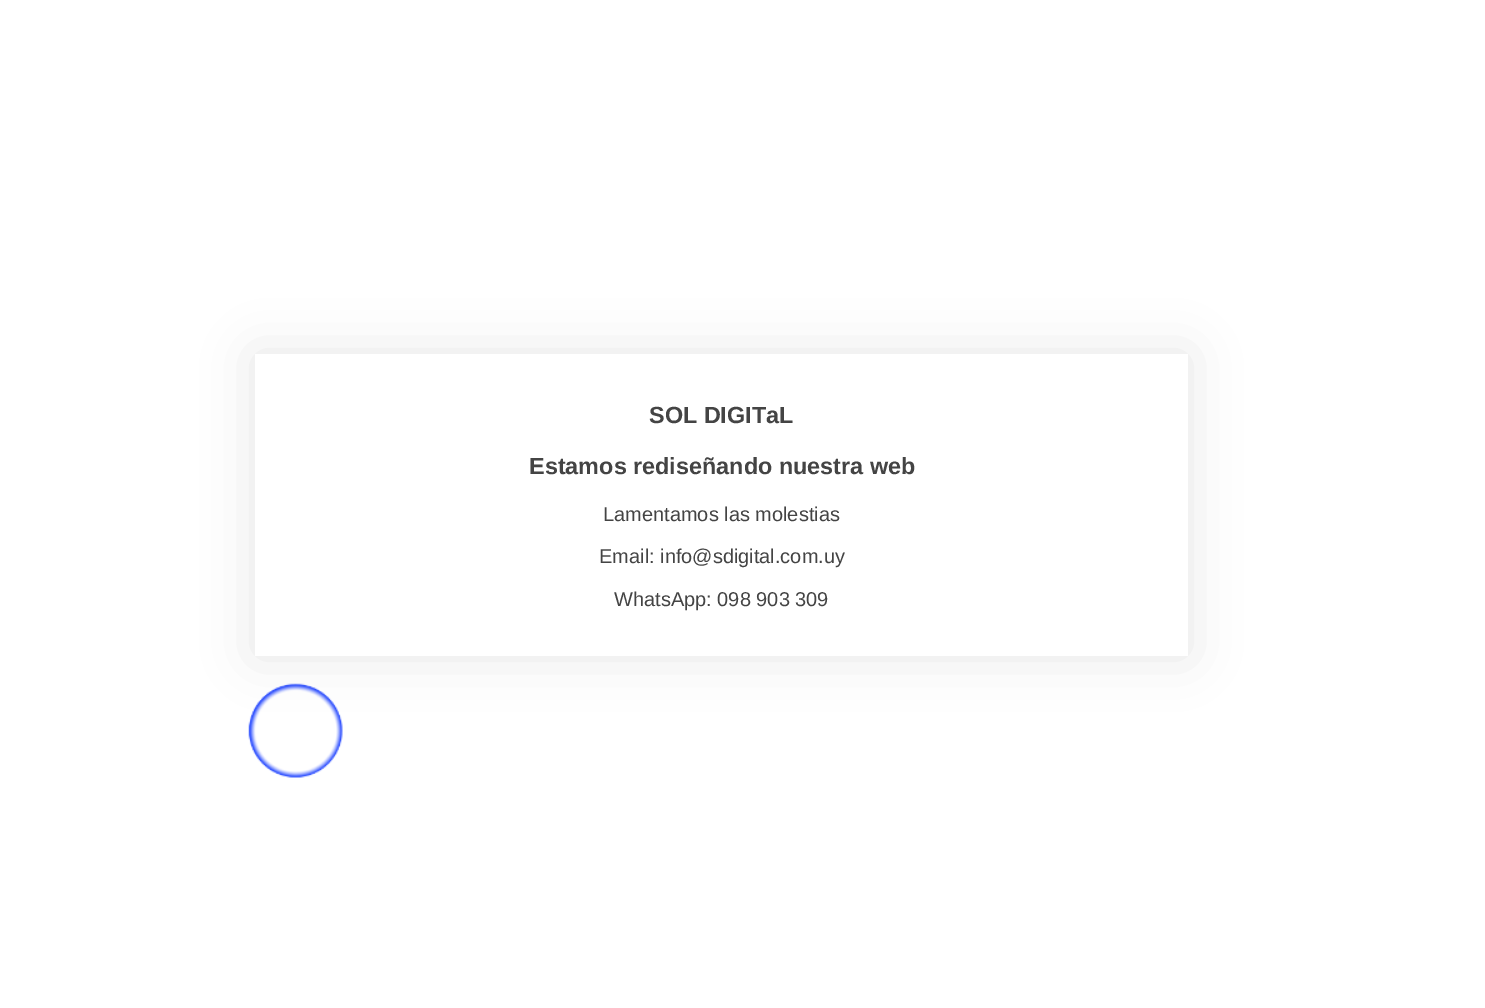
%!PS-Adobe-3.0
%%BoundingBox: 0 0 1485 1008
%%LanguageLevel: 3
%%Pages: 1
%%EndComments
%%BeginProlog
/setalpha { dup .setfillconstantalpha .setstrokeconstantalpha } def
/rrect { 5 dict begin { /r /h /w /y /x } { exch def } forall
  x r add y moveto x w add y 2 copy h add r arct x w add y h add x 1 index r arct
  x y h add x y r arct x y 2 copy exch w add exch r arct closepath end } def
/softshadow { 12 dict begin { /a /b /q /h /w /y /x } { exch def } forall gsave /was 0 def
  9 -2 -9 { dup b mul 4 div /e exch def 1 sub .425 mul 2.718 exch exp 1 add a .99 .min exch div /now exch def
    1 1 now sub 1 was sub div sub setalpha /was now def
    w h .min e 2 mul add 0 gt { x e sub y e sub w e 2 mul add h e 2 mul add
      q e add b .6 mul add w h .min 2 div e add .min 0 .max rrect fill } if } for grestore end } def
/drawimage { 5 dict begin { /h /w /y /x /name } { exch def } forall
  gsave x y translate w h scale
  w h 8 [w 0 0 h 0 0] name (r) file false 3 colorimage grestore end } def
%%EndProlog
%%BeginSetup
<< /PageSize [1485 1008] /PageUsesTransparency true >> setpagedevice
%%EndSetup
%%Page: 1 1
0 .pushpdf14devicefilter
0 1008 translate 1 -1 scale
4 setmiterlimit
1 setgray
0 0 1485 1008 rectfill
(images/1.raw) 248 683 95 95 drawimage
0 setgray
255 354 933 302 0 25 0.1 softshadow
1 setgray
255 354 933 302 rectfill
/LiberationSans-Bold [23.4 0 0 -23.4 0 0] selectfont
0.267 setgray
649 423 moveto (SOL DIGITaL) show
529 474 moveto (Estamos rediseñando nuestra web) show
/LiberationSans-Regular [20 0 0 -20 0 0] selectfont
603 521 moveto (Lamentamos las molestias) show
599 563 moveto (Email: info@sdigital.com.uy) show
614 606 moveto (WhatsApp: 098 903 309) show
.poppdf14devicefilter showpage
%%EOF
